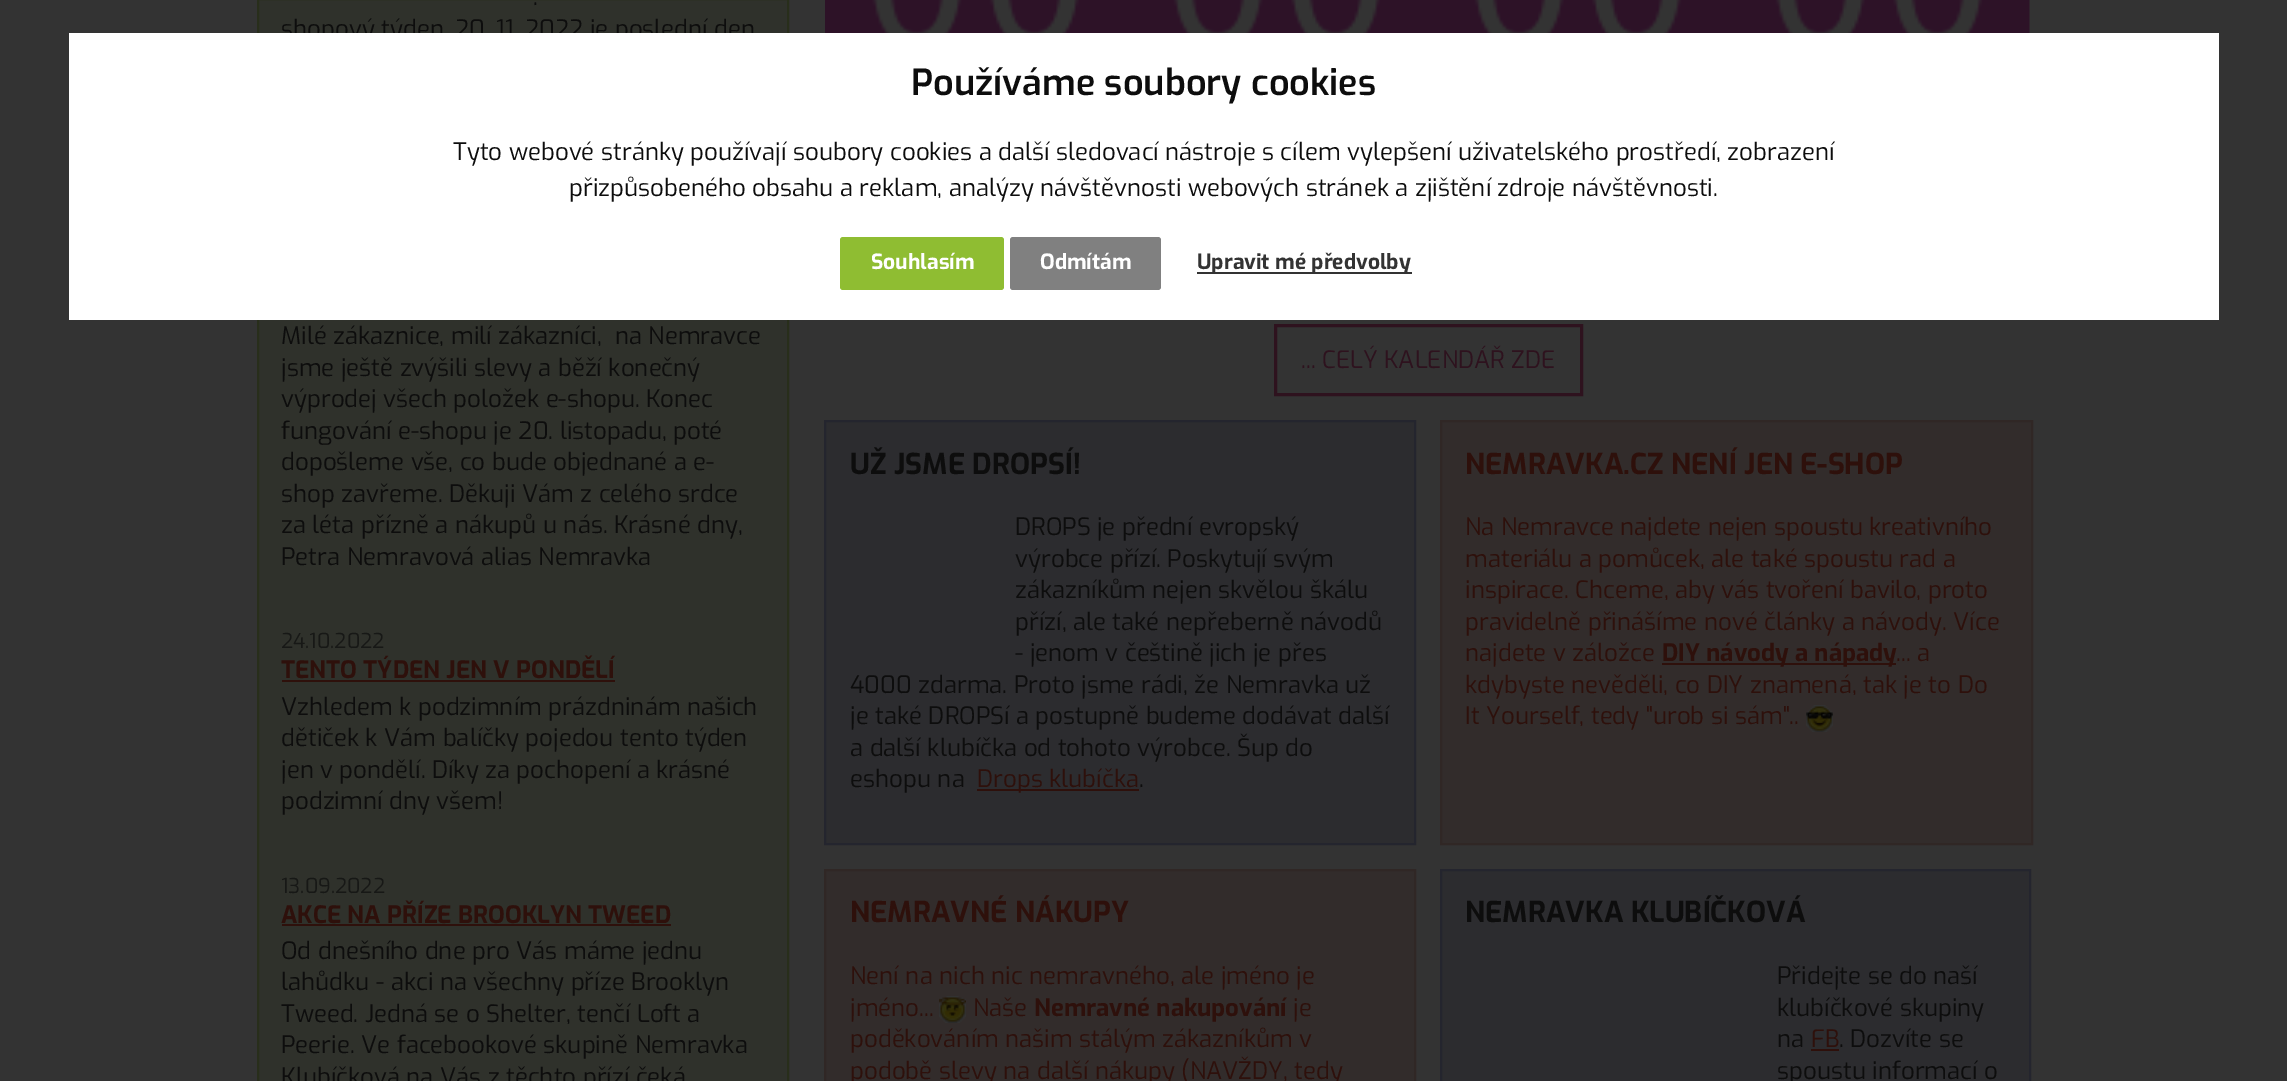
%!PS-Adobe-3.0
%%BoundingBox: 0 0 2287 1081
%%LanguageLevel: 3
%%Pages: 1
%%EndComments
%%BeginProlog
/rrect { 5 dict begin { /r /h /w /y /x } { exch def } forall
  x r add y moveto x w add y 2 copy h add r arct x w add y h add x 1 index r arct
  x y h add x y r arct x y 2 copy exch w add exch r arct closepath end } def
/drawimage { 5 dict begin { /h /w /y /x /name } { exch def } forall
  gsave x y translate w h scale
  w h 8 [w 0 0 h 0 0] name (r) file false 3 colorimage grestore end } def
%%EndProlog
%%BeginSetup
<< /PageSize [2287 1081] >> setpagedevice
%%EndSetup
%%Page: 1 1
0 1081 translate 1 -1 scale
4 setmiterlimit
0.2 setgray
0 0 2287 1081 rectfill
0.184 0.192 0.169 setrgbcolor
newpath 258 -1 moveto 788 -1 lineto 788 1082 lineto 258 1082 lineto closepath gsave fill grestore
0.157 0.18 0.106 setrgbcolor
2 setlinewidth
stroke
0.18 0.063 0.043 setrgbcolor
282 680 333 2 rectfill
282 924 389 2 rectfill
(images/1.raw) 825 0 1205 33 drawimage
0.18 0.071 0.118 setrgbcolor
3 setlinewidth
1275.5 325.5 306 69 rectstroke
0.173 0.173 0.184 setrgbcolor
newpath 825 421 moveto 1415 421 lineto 1415 844 lineto 825 844 lineto closepath gsave fill grestore
0.141 0.145 0.18 setrgbcolor
2 setlinewidth
stroke
0.18 0.063 0.043 setrgbcolor
977 789 162 2 rectfill
0.196 0.173 0.169 setrgbcolor
newpath 1441 421 moveto 2032 421 lineto 2032 844 lineto 1441 844 lineto closepath gsave fill grestore
0.188 0.153 0.145 setrgbcolor
stroke
0.18 0.063 0.043 setrgbcolor
1662 663 234 2 rectfill
(images/2.raw) 1806 705 27 27 drawimage
0.196 0.173 0.169 setrgbcolor
newpath 825 870 moveto 1415 870 lineto 1415 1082 lineto 825 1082 lineto closepath gsave fill grestore
0.188 0.153 0.145 setrgbcolor
stroke
(images/3.raw) 939 996 27 27 drawimage
0.173 0.173 0.184 setrgbcolor
newpath 1441 870 moveto 2030 870 lineto 2030 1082 lineto 1441 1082 lineto closepath gsave fill grestore
0.141 0.145 0.18 setrgbcolor
stroke
0.18 0.063 0.043 setrgbcolor
1811 1049 28 2 rectfill
/Exo-Regular [24 0 0 -24 0 0] selectfont
0.051 setgray
533 5 moveto (.) show
281 37 moveto (shopový týden. 20. 11. 2022 je poslední den) show
281 344 moveto (Milé zákaznice, milí zákazníci,  na Nemravce) show
281 376 moveto (jsme ještě zvýšili slevy a běží konečný) show
281 407 moveto (výprodej všech položek e-shopu. Konec) show
281 439 moveto (fungování e-shopu je 20. listopadu, poté) show
281 470 moveto (dopošleme vše, co bude objednané a e-) show
281 502 moveto (shop zavřeme. Děkuji Vám z celého srdce) show
281 533 moveto (za léta přízně a nákupů u nás. Krásné dny,) show
281 565 moveto (Petra Nemravová alias Nemravka) show
/Exo-Regular [20.5 0 0 -20.5 0 0] selectfont
0.09 0.094 0.086 setrgbcolor
281 648 moveto (24.10.2022) show
/Exo-Bold [24 0 0 -24 0 0] selectfont
0.18 0.063 0.043 setrgbcolor
281 678 moveto (TENTO TÝDEN JEN V PONDĚLÍ) show
/Exo-Regular [24 0 0 -24 0 0] selectfont
0.051 setgray
281 715 moveto (Vzhledem k podzimním prázdninám našich) show
281 746 moveto (dětiček k Vám balíčky pojedou tento týden) show
281 778 moveto (jen v pondělí. Díky za pochopení a krásné) show
281 809 moveto (podzimní dny všem!) show
/Exo-Regular [20.5 0 0 -20.5 0 0] selectfont
0.09 0.094 0.086 setrgbcolor
281 893 moveto (13.09.2022) show
/Exo-Bold [24 0 0 -24 0 0] selectfont
0.18 0.063 0.043 setrgbcolor
281 923 moveto (AKCE NA PŘÍZE BROOKLYN TWEED) show
/Exo-Regular [24 0 0 -24 0 0] selectfont
0.051 setgray
281 959 moveto (Od dnešního dne pro Vás máme jednu) show
281 990 moveto (lahůdku - akci na všechny příze Brooklyn) show
281 1022 moveto (Tweed. Jedná se o Shelter, tenčí Loft a) show
281 1053 moveto (Peerie. Ve facebookové skupině Nemravka) show
281 1085 moveto (Klubíčková na Vás z těchto přízí čeká) show
0.18 0.071 0.118 setrgbcolor
1301 368 moveto (... CELÝ KALENDÁŘ ZDE) show
/Exo-Bold [28.75 0 0 -28.75 0 0] selectfont
0.051 setgray
850 474 moveto (UŽ JSME DROPSÍ!) show
/Exo-Regular [24 0 0 -24 0 0] selectfont
1015 535 moveto (DROPS je přední evropský) show
1015 567 moveto (výrobce přízí. Poskytují svým) show
1015 598 moveto (zákazníkům nejen skvělou škálu) show
1015 630 moveto (přízí, ale také nepřeberně návodů) show
1015 661 moveto (- jenom v češtině jich je přes) show
850 693 moveto (4000 zdarma. Proto jsme rádi, že Nemravka už) show
850 724 moveto (je také DROPSí a postupně budeme dodávat další) show
850 756 moveto (a další klubíčka od tohoto výrobce. Šup do) show
850 787 moveto (eshopu na) show
0.18 0.063 0.043 setrgbcolor
977 787 moveto (Drops klubíčka) show
0.051 setgray
1139 787 moveto (.) show
/Exo-Bold [28.75 0 0 -28.75 0 0] selectfont
0.18 0.063 0.043 setrgbcolor
1465 474 moveto (NEMRAVKA.CZ NENÍ JEN E-SHOP) show
/Exo-Regular [24 0 0 -24 0 0] selectfont
1465 535 moveto (Na Nemravce najdete nejen spoustu kreativního) show
1465 567 moveto (materiálu a pomůcek, ale také spoustu rad a) show
1465 598 moveto (inspirace. Chceme, aby vás tvoření bavilo, proto) show
1465 630 moveto (pravidelně přinášíme nové články a návody. Více) show
1465 661 moveto (najdete v záložce) show
/Exo-Bold [24 0 0 -24 0 0] selectfont
1662 661 moveto (DIY návody a nápady) show
/Exo-Regular [24 0 0 -24 0 0] selectfont
1896 661 moveto (... a) show
1465 693 moveto (kdybyste nevěděli, co DIY znamená, tak je to Do) show
1465 724 moveto (It Yourself, tedy "urob si sám"..) show
/Exo-Bold [28.75 0 0 -28.75 0 0] selectfont
850 922 moveto (NEMRAVNÉ NÁKUPY) show
/Exo-Regular [24 0 0 -24 0 0] selectfont
850 984 moveto (Není na nich nic nemravného, ale jméno je) show
850 1016 moveto (jméno...) show
973 1016 moveto (Naše) show
/Exo-Bold [24 0 0 -24 0 0] selectfont
1034 1016 moveto (Nemravné nakupování) show
/Exo-Regular [24 0 0 -24 0 0] selectfont
1293 1016 moveto (je) show
850 1047 moveto (poděkováním našim stálým zákazníkům v) show
850 1079 moveto (podobě slevy na další nákupy \(NAVŽDY, tedy) show
/Exo-Bold [28.75 0 0 -28.75 0 0] selectfont
0.051 setgray
1465 922 moveto (NEMRAVKA KLUBÍČKOVÁ) show
/Exo-Regular [24 0 0 -24 0 0] selectfont
1777 984 moveto (Přidejte se do naší) show
1777 1016 moveto (klubíčkové skupiny) show
1777 1047 moveto (na) show
0.18 0.063 0.043 setrgbcolor
1811 1047 moveto (FB) show
0.051 setgray
1839 1047 moveto (. Dozvíte se) show
1777 1079 moveto (spoustu informací o) show
1 setgray
69 33 2150 287 rectfill
/Exo-SemiBold [36 0 0 -36 0 0] selectfont
0.051 setgray
911 95 moveto (Používáme soubory cookies) show
/Exo-Regular [24 0 0 -24 0 0] selectfont
453 160 moveto (Tyto webové stránky používají soubory cookies a další sledovací nástroje s cílem vylepšení uživatelského prostředí, zobrazení) show
569 196 moveto (přizpůsobeného obsahu a reklam, analýzy návštěvnosti webových stránek a zjištění zdroje návštěvnosti.) show
0.561 0.741 0.196 setrgbcolor
840 237 164 53 3 rrect fill
/Exo-Bold [21 0 0 -21 0 0] selectfont
1 setgray
871 269 moveto (Souhlasím) show
0.502 setgray
1010 237 151 53 3 rrect fill
1 setgray
1040 269 moveto (Odmítám) show
0.2 setgray
1197 272 215 2 rectfill
1197 269 moveto (Upravit mé předvolby) show
showpage
%%EOF
